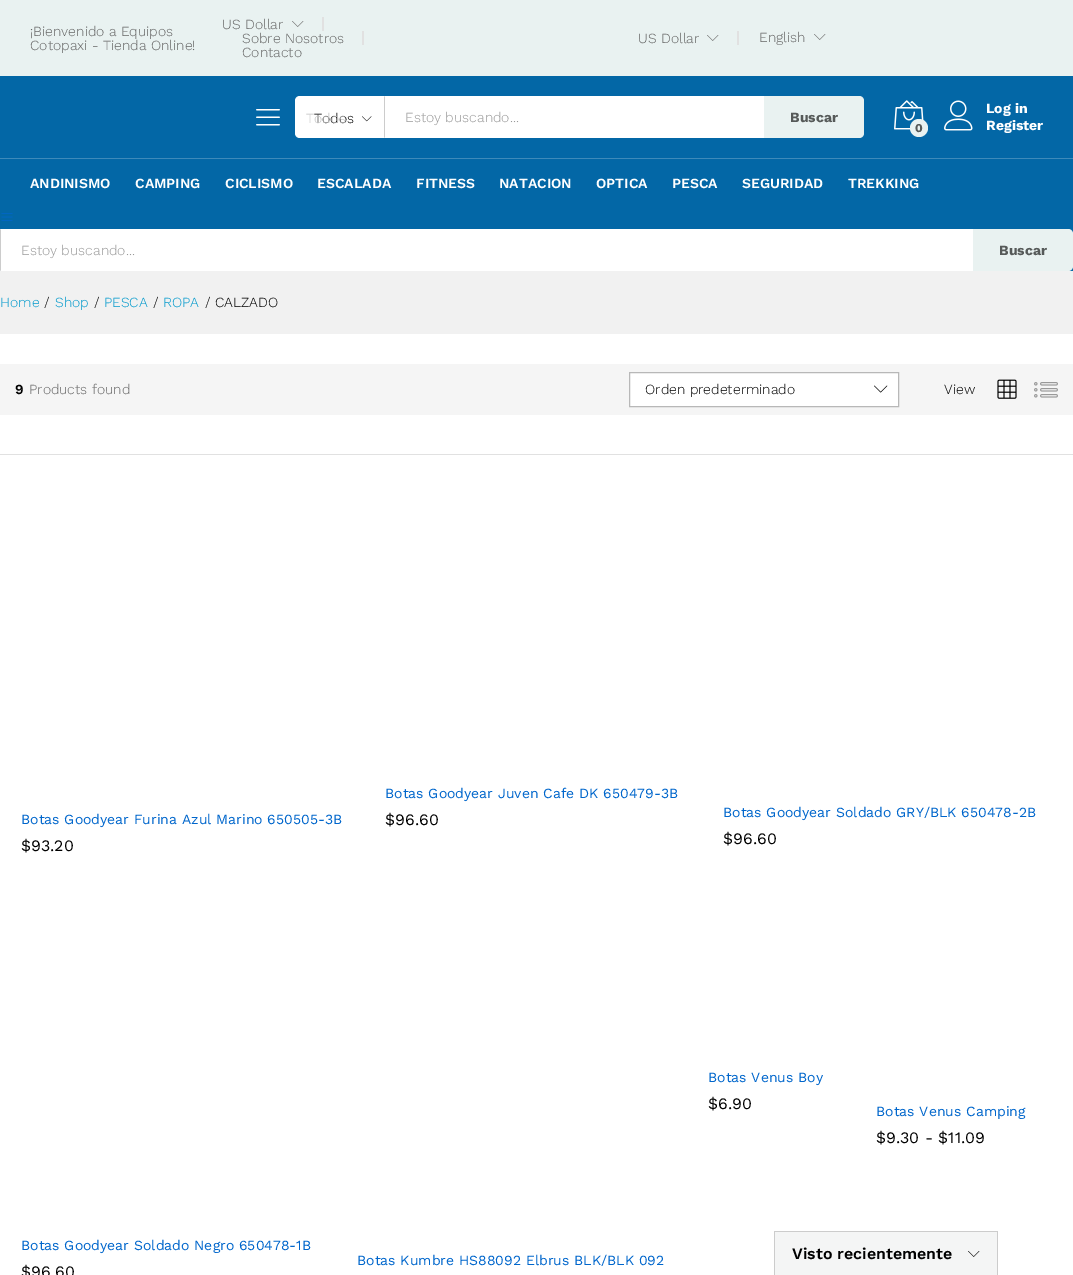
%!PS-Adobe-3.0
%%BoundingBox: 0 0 1073 1275
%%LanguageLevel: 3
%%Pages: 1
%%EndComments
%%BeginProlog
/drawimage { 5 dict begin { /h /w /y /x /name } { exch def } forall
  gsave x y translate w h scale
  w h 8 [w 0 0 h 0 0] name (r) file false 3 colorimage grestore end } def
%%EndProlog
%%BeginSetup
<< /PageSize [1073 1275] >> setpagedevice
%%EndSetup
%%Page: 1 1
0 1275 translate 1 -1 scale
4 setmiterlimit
1 setgray
0 0 1073 1275 rectfill
0.914 0.949 0.945 setrgbcolor
0 0 1073 76 rectfill
(images/1.raw) 292 21 12 6 drawimage
0.882 setgray
322 17 2 14 rectfill
362 31 2 14 rectfill
(images/1.raw) 707 35 12 6 drawimage
737 31 2 14 rectfill
(images/1.raw) 814 34 12 6 drawimage
0.012 0.404 0.651 setrgbcolor
0 76 1073 195 rectfill
(images/2.raw) 256 109 24 17 drawimage
1 setgray
newpath 300 96 moveto 385 96 lineto 385 138 lineto 300 138 lineto 297 138 295 136 295 133 curveto 295 101 lineto 295 98 297 96 300 96 curveto closepath fill
0.8 setgray
newpath 385 96 moveto 384 97 lineto 384 137 lineto 385 138 lineto closepath fill
(images/3.raw) 362 116 10 6 drawimage
1 setgray
385 96 379 42 rectfill
0.914 0.949 0.945 setrgbcolor
newpath 764 96 moveto 859 96 lineto 862 96 864 98 864 101 curveto 864 133 lineto 864 136 862 138 859 138 curveto 764 138 lineto closepath fill
(images/4.raw) 894 100 30 30 drawimage
newpath 919 128 9 0 360 arc closepath fill
(images/5.raw) 944 100 29 31 drawimage
0.239 0.541 0.729 setrgbcolor
0 158 1073 1 rectfill
(images/6.raw) 1 213 12 8 drawimage
1 setgray
newpath 1 229 moveto 1 271 lineto 0.5 271 0 270.5 0 270 curveto 0 230 lineto 0 229.5 0.5 229 1 229 curveto closepath fill
0.8 setgray
newpath 1 229 moveto 0 230 lineto 0 270 lineto 1 271 lineto closepath fill
1 setgray
1 229 972 42 rectfill
0.914 0.949 0.945 setrgbcolor
newpath 973 229 moveto 1068 229 lineto 1071 229 1073 231 1073 234 curveto 1073 266 lineto 1073 269 1071 271 1068 271 curveto 973 271 lineto closepath fill
0.945 setgray
0 271 1073 63 rectfill
0.961 setgray
0 364 1073 51 rectfill
1 setgray
newpath 629.5 372.5 moveto 898.5 372.5 lineto 898.5 406.5 lineto 629.5 406.5 lineto closepath gsave fill grestore
0.722 setgray
stroke
(images/7.raw) 874 385 14 8 drawimage
(images/8.raw) 997 379 20 20 drawimage
(images/9.raw) 1034 382 24 16 drawimage
0.882 setgray
0 454 1073 1 rectfill
0.957 0.961 0.961 setrgbcolor
775 1232 222 43 rectfill
0.8 setgray
774 1231 224 1 rectfill
997 1231 1 44 rectfill
774 1231 1 44 rectfill
(images/10.raw) 968 1251 12 6 drawimage
/WorkSans-Light [14 0 0 -14 0 0] selectfont
0.4 setgray
30 36 moveto (¡Bienvenido a Equipos) show
30 50 moveto (Cotopaxi - Tienda Online!) show
222 29 moveto (US Dollar) show
242 43 moveto (Sobre Nosotros) show
242 57 moveto (Contacto) show
638 43 moveto (US Dollar) show
759 42 moveto (English) show
0 setgray
314 123 moveto (Todos) show
0.761 setgray
306 123 moveto (Todos) show
0.6 setgray
405 122 moveto (Estoy buscando...) show
/WorkSans-Bold [14 0 0 -14 0 0] selectfont
0.337 0.353 0.349 setrgbcolor
790 122 moveto (Buscar) show
/WorkSans-Bold [12 0 0 -12 0 0] selectfont
915 132 moveto (0) show
/WorkSans-Bold [14 0 0 -14 0 0] selectfont
1 setgray
986 113 moveto (Log in) show
986 130 moveto (Register) show
/WorkSans-SemiBold [14 0 0 -14 0 0] selectfont
30 188 moveto (ANDINISMO) show
135 188 moveto (CAMPING) show
225 188 moveto (CICLISMO) show
317 188 moveto (ESCALADA) show
416 188 moveto (FITNESS) show
499 188 moveto (NATACION) show
596 188 moveto (OPTICA) show
672 188 moveto (PESCA) show
742 188 moveto (SEGURIDAD) show
848 188 moveto (TREKKING) show
/WorkSans-Light [14 0 0 -14 0 0] selectfont
0.6 setgray
21 255 moveto (Estoy buscando...) show
/WorkSans-Bold [14 0 0 -14 0 0] selectfont
0.337 0.353 0.349 setrgbcolor
999 255 moveto (Buscar) show
/WorkSans-Light [14 0 0 -14 0 0] selectfont
0 0.6 0.8 setrgbcolor
0 307 moveto (Home) show
0 setgray
44 307 moveto (/) show
0 0.6 0.8 setrgbcolor
55 307 moveto (Shop) show
0 setgray
94 307 moveto (/) show
0 0.6 0.8 setrgbcolor
104 307 moveto (PESCA) show
0 setgray
153 307 moveto (/) show
0 0.6 0.8 setrgbcolor
163 307 moveto (ROPA) show
0 setgray
205 307 moveto (/) show
215 307 moveto (CALZADO) show
/WorkSans-SemiBold [14 0 0 -14 0 0] selectfont
15 394 moveto (9) show
/WorkSans-Light [14 0 0 -14 0 0] selectfont
0.4 setgray
29 394 moveto (Products found) show
0 setgray
645 394 moveto (Orden predeterminado) show
944 394 moveto (View) show
/WorkSans-Regular [14 0 0 -14 0 0] selectfont
0 0.4 0.8 setrgbcolor
21 824 moveto (Botas Goodyear Furina Azul Marino 650505-3B) show
/WorkSans-Regular [16 0 0 -16 0 0] selectfont
0 setgray
21 851 moveto ($93.20) show
/WorkSans-Regular [14 0 0 -14 0 0] selectfont
0 0.4 0.8 setrgbcolor
385 798 moveto (Botas Goodyear Juven Cafe DK 650479-3B) show
/WorkSans-Regular [16 0 0 -16 0 0] selectfont
0 setgray
385 825 moveto ($96.60) show
/WorkSans-Regular [14 0 0 -14 0 0] selectfont
0 0.4 0.8 setrgbcolor
723 817 moveto (Botas Goodyear Soldado GRY/BLK 650478-2B) show
/WorkSans-Regular [16 0 0 -16 0 0] selectfont
0 setgray
723 844 moveto ($96.60) show
/WorkSans-Regular [14 0 0 -14 0 0] selectfont
0 0.4 0.8 setrgbcolor
708 1082 moveto (Botas Venus Boy) show
/WorkSans-Regular [16 0 0 -16 0 0] selectfont
0 setgray
708 1109 moveto ($6.90) show
/WorkSans-Regular [14 0 0 -14 0 0] selectfont
0 0.4 0.8 setrgbcolor
876 1116 moveto (Botas Venus Camping) show
/WorkSans-Regular [16 0 0 -16 0 0] selectfont
0 setgray
876 1143 moveto ($9.30 - $11.09) show
/WorkSans-Regular [14 0 0 -14 0 0] selectfont
0 0.4 0.8 setrgbcolor
21 1250 moveto (Botas Goodyear Soldado Negro 650478-1B) show
/WorkSans-Regular [16 0 0 -16 0 0] selectfont
0 setgray
21 1277 moveto ($96.60) show
/WorkSans-Regular [14 0 0 -14 0 0] selectfont
0 0.4 0.8 setrgbcolor
357 1265 moveto (Botas Kumbre HS88092 Elbrus BLK/BLK 092) show
/WorkSans-SemiBold [16 0 0 -16 0 0] selectfont
0 setgray
792 1259 moveto (Visto recientemente) show
showpage
%%EOF
